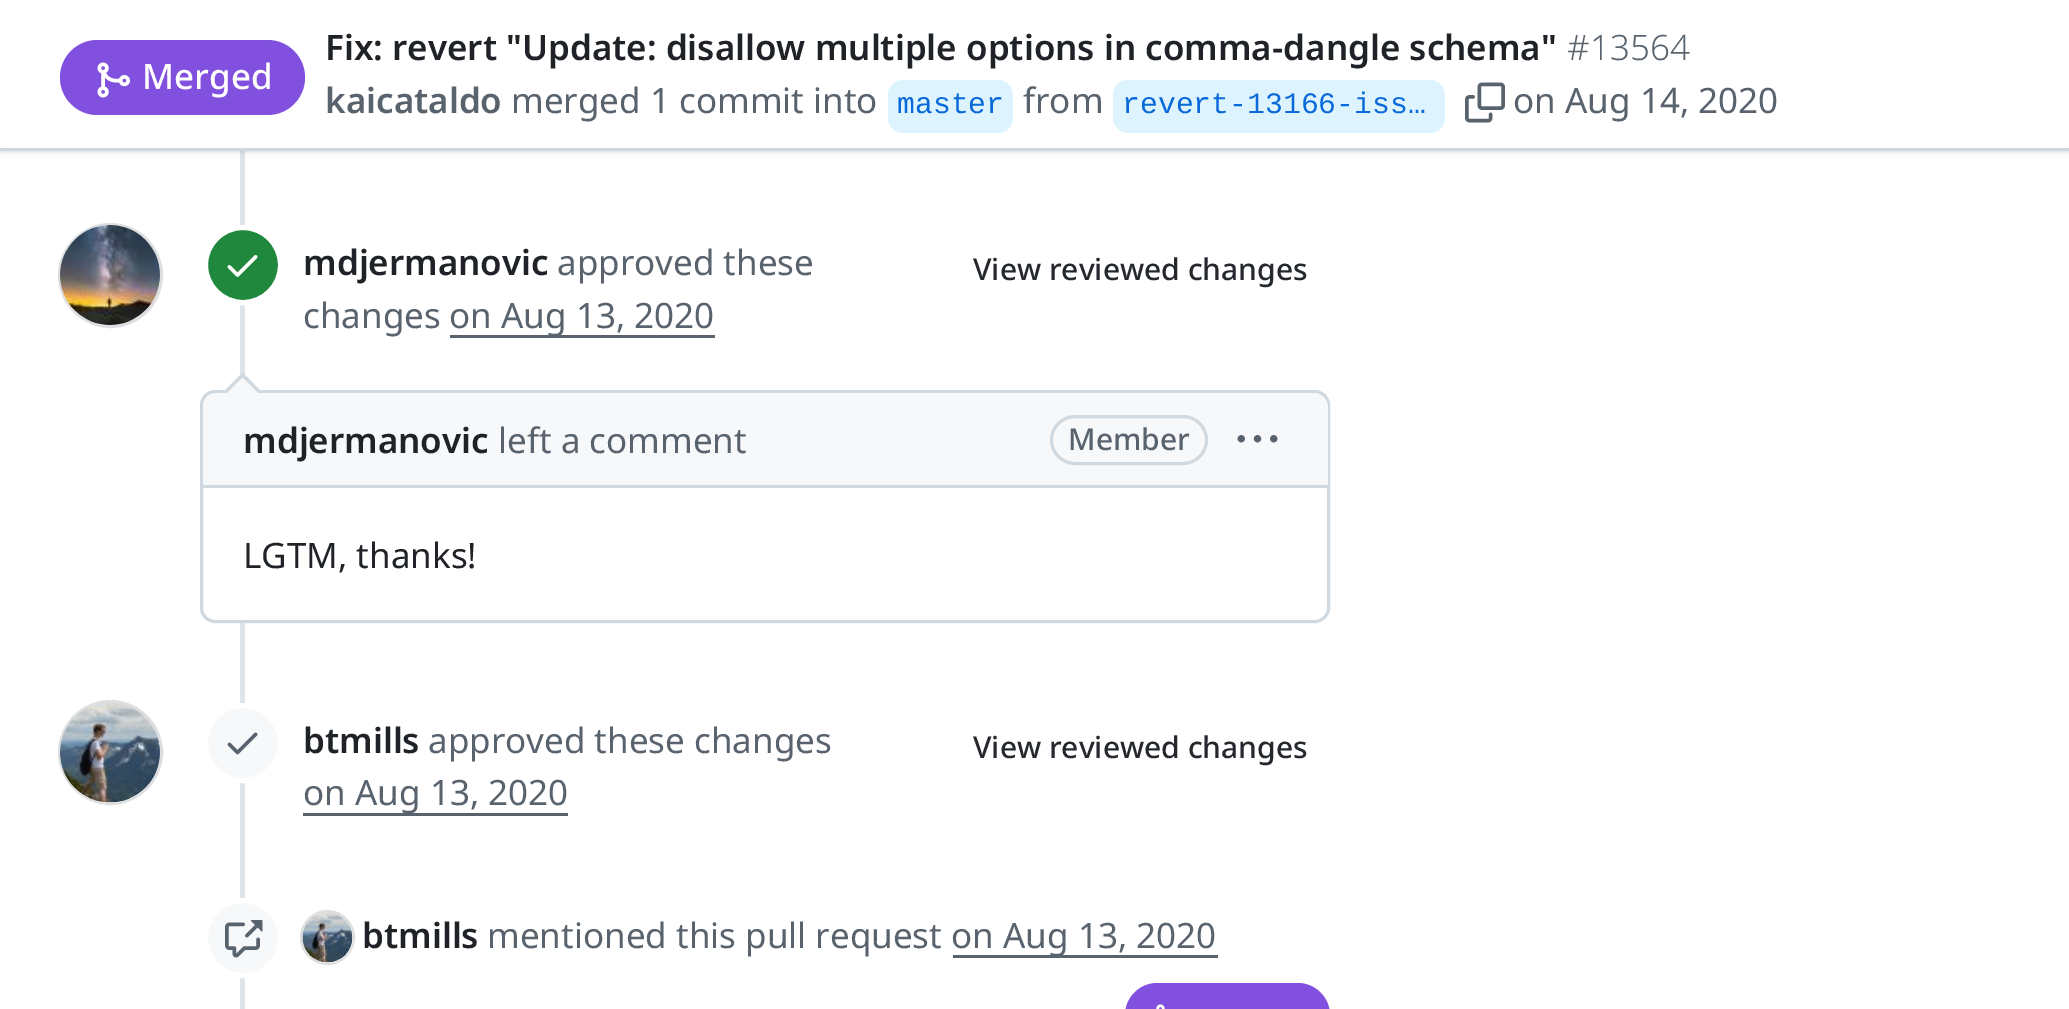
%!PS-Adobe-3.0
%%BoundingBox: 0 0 2069 1009
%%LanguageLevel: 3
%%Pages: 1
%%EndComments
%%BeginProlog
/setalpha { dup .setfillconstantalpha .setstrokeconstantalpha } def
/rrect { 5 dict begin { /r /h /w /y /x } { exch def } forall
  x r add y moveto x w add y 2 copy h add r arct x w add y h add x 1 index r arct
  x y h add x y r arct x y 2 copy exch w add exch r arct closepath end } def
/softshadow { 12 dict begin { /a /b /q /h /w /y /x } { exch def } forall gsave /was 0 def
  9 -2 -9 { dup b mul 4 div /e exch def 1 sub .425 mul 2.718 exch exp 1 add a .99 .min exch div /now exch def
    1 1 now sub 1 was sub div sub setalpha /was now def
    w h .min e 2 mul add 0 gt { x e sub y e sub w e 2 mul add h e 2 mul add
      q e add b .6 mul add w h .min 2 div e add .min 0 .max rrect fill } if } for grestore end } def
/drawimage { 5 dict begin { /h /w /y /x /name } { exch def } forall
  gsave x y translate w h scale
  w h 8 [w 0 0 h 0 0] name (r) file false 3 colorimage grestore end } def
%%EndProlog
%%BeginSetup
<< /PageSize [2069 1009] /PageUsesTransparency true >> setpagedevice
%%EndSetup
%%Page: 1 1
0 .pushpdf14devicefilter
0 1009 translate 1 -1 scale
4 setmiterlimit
1 setgray
0 0 2069 1009 rectfill
0.875 0.894 0.914 setrgbcolor
240 151 5 229 rectfill
0.122 0.137 0.157 setrgbcolor
0 3 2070 150 0 4 0.06 softshadow
0 3 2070 150 0 1 0.06 softshadow
1 setgray
0 0 2069 148 rectfill
0.82 0.851 0.878 setrgbcolor
0 148 2069 3 rectfill
0.51 0.314 0.875 setrgbcolor
60 40 245 75 37.5 rrect fill
(images/1.raw) 97 62 33 36 drawimage
0.867 0.957 1 setrgbcolor
888 80 125 53 15 rrect fill
1113 80 332 53 15 rrect fill
(images/2.raw) 1465 82 40 41 drawimage
0.867 0.871 0.875 setrgbcolor
3 setlinewidth
newpath 110.5 275.5 51 0 360 arc closepath stroke
1 setgray
newpath 110 275 50 0 360 arc closepath fill
(images/3.raw) 60 225 100 100 drawimage
0.122 0.533 0.239 setrgbcolor
newpath 243 265 37.5 0 360 arc closepath gsave fill grestore
1 setgray
5 setlinewidth
stroke
(images/4.raw) 227 255 31 22 drawimage
0.349 0.388 0.431 setrgbcolor
450 335 265 3 rectfill
0.82 0.851 0.878 setrgbcolor
3 setlinewidth
201.5 391.5 1127 230 13.5 rrect stroke
newpath 262 392.5 moveto 222.5 392.5 lineto 242 373 lineto 243 373 lineto 262 392 lineto closepath fill
0.965 0.973 0.98 setrgbcolor
newpath 218 393 moveto 1313 393 lineto 1321.5 393 1328 399.5 1328 408 curveto 1328 488 lineto 203 488 lineto 203 408 lineto 203 399.5 209.5 393 218 393 curveto closepath fill
newpath 262 397.5 moveto 222.5 397.5 lineto 242 378 lineto 243 378 lineto 262 397 lineto closepath fill
0.82 0.851 0.878 setrgbcolor
203 485 1125 3 rectfill
1051.5 416.5 155 47 23.5 rrect stroke
(images/5.raw) 1237 435 41 8 drawimage
0.875 0.894 0.914 setrgbcolor
240 623 5 386 rectfill
0.867 0.871 0.875 setrgbcolor
newpath 110.5 752.5 51 0 360 arc closepath stroke
1 setgray
newpath 110 753 50 0 360 arc closepath fill
(images/6.raw) 60 703 100 100 drawimage
0.965 0.973 0.98 setrgbcolor
newpath 243 743 37.5 0 360 arc closepath gsave fill grestore
1 setgray
5 setlinewidth
stroke
(images/7.raw) 227 732 31 23 drawimage
0.349 0.388 0.431 setrgbcolor
303 813 265 3 rectfill
0.965 0.973 0.98 setrgbcolor
newpath 243 938 37.5 0 360 arc closepath gsave fill grestore
1 setgray
stroke
(images/8.raw) 225 920 38 38 drawimage
0.867 0.871 0.875 setrgbcolor
3 setlinewidth
newpath 327.5 937.5 26 0 360 arc closepath stroke
1 setgray
newpath 328 938 25 0 360 arc closepath fill
(images/9.raw) 302 913 51 50 drawimage
0.349 0.388 0.431 setrgbcolor
953 955 265 3 rectfill
0.51 0.314 0.875 setrgbcolor
1125 983 205 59 32.5 rrect fill
(images/10.raw) 1156 1004 9 5 drawimage
/NotoSans-Medium [35 0 0 -35 0 0] selectfont
1 setgray
142 89 moveto (Merged) show
/NotoSans-SemiBold [35 0 0 -35 0 0] selectfont
0.122 0.137 0.157 setrgbcolor
325 60 moveto (Fix: revert "Update: disallow multiple options in comma-dangle schema") show
/NotoSans-Light [35 0 0 -35 0 0] selectfont
0.349 0.388 0.431 setrgbcolor
1567 60 moveto (#13564) show
/NotoSans-SemiBold [35 0 0 -35 0 0] selectfont
325 113 moveto (kaicataldo) show
/NotoSans-Regular [35 0 0 -35 0 0] selectfont
511 113 moveto (merged 1 commit into) show
/LiberationMono-Regular [29.75 0 0 -29.75 0 0] selectfont
0.035 0.412 0.855 setrgbcolor
897 113 moveto (master) show
/NotoSans-Regular [35 0 0 -35 0 0] selectfont
0.349 0.388 0.431 setrgbcolor
1023 113 moveto (from) show
/LiberationMono-Regular [29.75 0 0 -29.75 0 0] selectfont
0.035 0.412 0.855 setrgbcolor
1122 113 moveto (revert-13166-iss…) show
/NotoSans-Regular [35 0 0 -35 0 0] selectfont
0.349 0.388 0.431 setrgbcolor
1513 113 moveto (on Aug 14, 2020) show
/NotoSans-SemiBold [35 0 0 -35 0 0] selectfont
0.122 0.137 0.157 setrgbcolor
303 275 moveto (mdjermanovic) show
/NotoSans-Regular [35 0 0 -35 0 0] selectfont
0.349 0.388 0.431 setrgbcolor
557 275 moveto (approved these) show
303 328 moveto (changes) show
449 328 moveto (on Aug 13, 2020) show
/NotoSans-Medium [30 0 0 -30 0 0] selectfont
0.145 0.161 0.18 setrgbcolor
973 280 moveto (View reviewed changes) show
/NotoSans-SemiBold [35 0 0 -35 0 0] selectfont
0.122 0.137 0.157 setrgbcolor
243 453 moveto (mdjermanovic) show
/NotoSans-Regular [35 0 0 -35 0 0] selectfont
0.349 0.388 0.431 setrgbcolor
498 453 moveto (left a comment) show
/NotoSans-Medium [30 0 0 -30 0 0] selectfont
1068 450 moveto (Member) show
/NotoSans-Regular [35 0 0 -35 0 0] selectfont
0.122 0.137 0.157 setrgbcolor
243 568 moveto (LGTM, thanks!) show
/NotoSans-SemiBold [35 0 0 -35 0 0] selectfont
303 753 moveto (btmills) show
/NotoSans-Regular [35 0 0 -35 0 0] selectfont
0.349 0.388 0.431 setrgbcolor
428 753 moveto (approved these changes) show
303 805 moveto (on Aug 13, 2020) show
/NotoSans-Medium [30 0 0 -30 0 0] selectfont
0.145 0.161 0.18 setrgbcolor
973 758 moveto (View reviewed changes) show
/NotoSans-SemiBold [35 0 0 -35 0 0] selectfont
0.122 0.137 0.157 setrgbcolor
362 948 moveto (btmills) show
/NotoSans-Regular [35 0 0 -35 0 0] selectfont
0.349 0.388 0.431 setrgbcolor
487 948 moveto (mentioned this pull request) show
951 948 moveto (on Aug 13, 2020) show
.poppdf14devicefilter showpage
%%EOF
